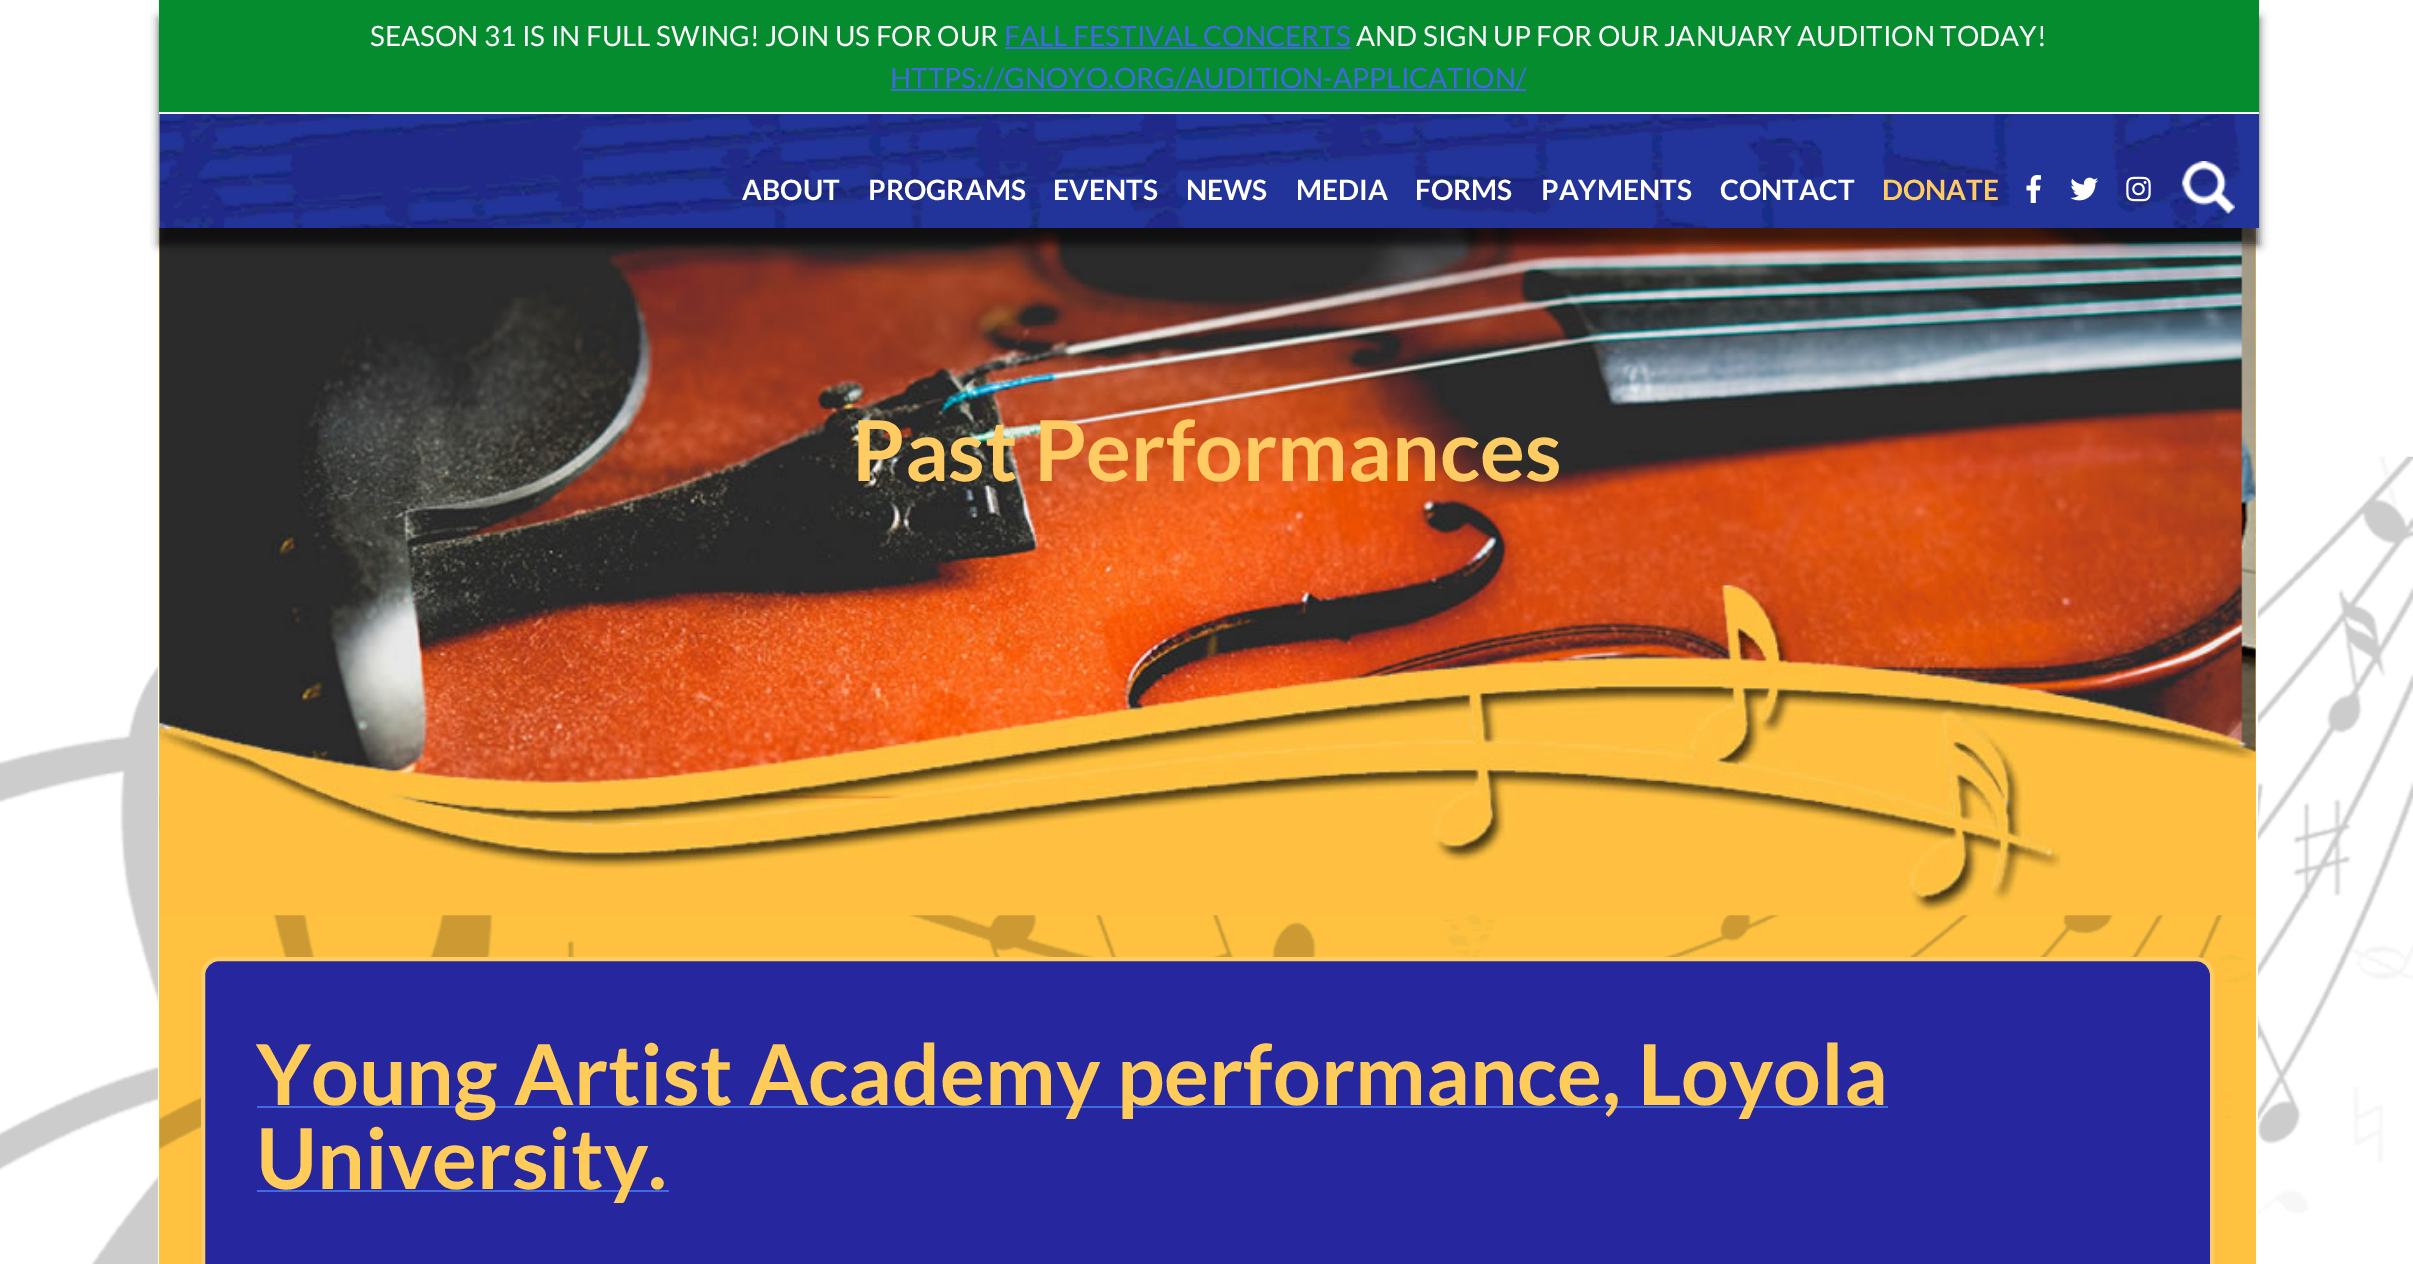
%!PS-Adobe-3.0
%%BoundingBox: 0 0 2413 1264
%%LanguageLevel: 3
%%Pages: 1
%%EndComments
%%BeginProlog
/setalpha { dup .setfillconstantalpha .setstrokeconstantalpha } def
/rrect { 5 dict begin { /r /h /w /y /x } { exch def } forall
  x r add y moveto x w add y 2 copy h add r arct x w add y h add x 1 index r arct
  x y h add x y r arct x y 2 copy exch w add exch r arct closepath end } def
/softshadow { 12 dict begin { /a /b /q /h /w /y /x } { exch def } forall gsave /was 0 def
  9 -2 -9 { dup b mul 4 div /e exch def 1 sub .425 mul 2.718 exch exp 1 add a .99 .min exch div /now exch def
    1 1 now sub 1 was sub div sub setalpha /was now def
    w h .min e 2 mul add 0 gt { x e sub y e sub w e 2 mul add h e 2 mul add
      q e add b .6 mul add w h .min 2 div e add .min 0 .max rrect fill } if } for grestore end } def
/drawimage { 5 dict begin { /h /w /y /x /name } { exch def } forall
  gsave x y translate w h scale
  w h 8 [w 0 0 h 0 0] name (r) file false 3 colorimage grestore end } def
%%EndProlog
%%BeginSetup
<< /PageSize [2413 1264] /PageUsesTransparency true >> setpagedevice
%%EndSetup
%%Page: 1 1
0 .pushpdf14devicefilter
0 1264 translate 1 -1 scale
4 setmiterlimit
1 setgray
0 0 2413 1264 rectfill
(images/1.raw) 0 456 2413 808 drawimage
2256 609 2 607 rectfill
158 662 2 602 rectfill
1 0.765 0.169 setrgbcolor
159 228 2097 1036 rectfill
(images/7.raw) 159 498 2097 766 drawimage
(images/8.raw) 159 227 2097 689 drawimage
0 setgray
159 18 2100 227 0 4.5 0.65 softshadow
(images/2.raw) 158 0 2101 228 drawimage
0.02 0.549 0.18 setrgbcolor
159 0 2100 112 rectfill
1 setgray
159 112 2100 2 rectfill
0.255 0.412 0.882 setrgbcolor
1005 47 346 2 rectfill
891 89 635 2 rectfill
(images/3.raw) 2026 175 15 28 drawimage
(images/4.raw) 2070 177 29 24 drawimage
(images/5.raw) 2126 176 25 26 drawimage
(images/6.raw) 2181 161 54 53 drawimage
0.149 0.149 0.62 setrgbcolor
203 959 2009 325 16 rrect gsave fill grestore
1 0.8 0.392 setrgbcolor
4 setlinewidth
stroke
0.255 0.412 0.882 setrgbcolor
257 1106 1631 2 rectfill
257 1190 412 2 rectfill
/Lato-Regular [28 0 0 -28 0 0] selectfont
1 setgray
370 46 moveto (SEASON 31 IS IN FULL SWING! JOIN US FOR OUR) show
0.255 0.412 0.882 setrgbcolor
1004 46 moveto (FALL FESTIVAL CONCERTS) show
1 setgray
1356 46 moveto (AND SIGN UP FOR OUR JANUARY AUDITION TODAY!) show
0.255 0.412 0.882 setrgbcolor
890 88 moveto (HTTPS://GNOYO.ORG/AUDITION-APPLICATION/) show
/Lato-Bold [28 0 0 -28 0 0] selectfont
1 setgray
742 200 moveto (ABOUT) show
868 200 moveto (PROGRAMS) show
1053 200 moveto (EVENTS) show
1186 200 moveto (NEWS) show
1296 200 moveto (MEDIA) show
1415 200 moveto (FORMS) show
1541 200 moveto (PAYMENTS) show
1720 200 moveto (CONTACT) show
1 0.8 0.392 setrgbcolor
1882 200 moveto (DONATE) show
/Lato-Bold [84 0 0 -84 0 0] selectfont
852 481 moveto (Past Performances) show
1 0.8 0.349 setrgbcolor
256 1105 moveto (Young Artist Academy performance, Loyola) show
256 1189 moveto (University.) show
.poppdf14devicefilter showpage
%%EOF
